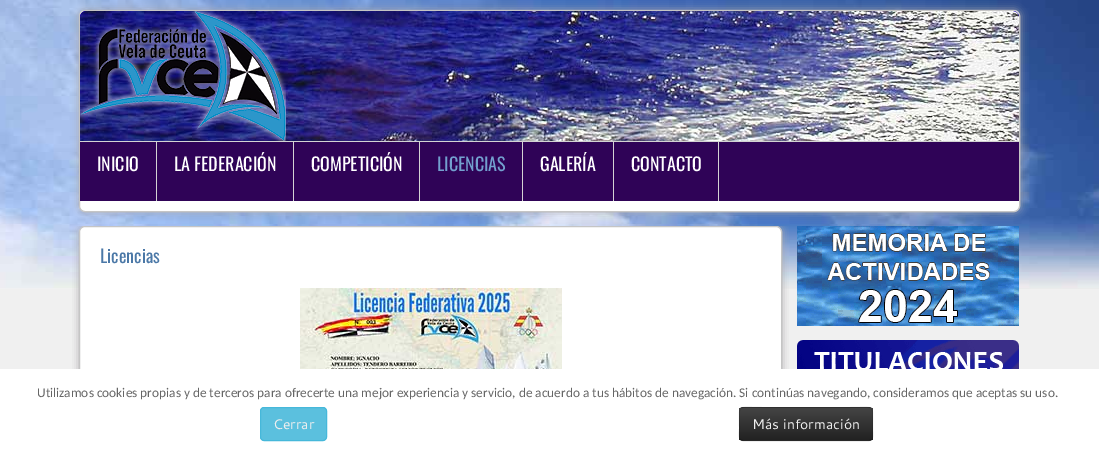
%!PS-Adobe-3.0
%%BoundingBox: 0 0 1099 451
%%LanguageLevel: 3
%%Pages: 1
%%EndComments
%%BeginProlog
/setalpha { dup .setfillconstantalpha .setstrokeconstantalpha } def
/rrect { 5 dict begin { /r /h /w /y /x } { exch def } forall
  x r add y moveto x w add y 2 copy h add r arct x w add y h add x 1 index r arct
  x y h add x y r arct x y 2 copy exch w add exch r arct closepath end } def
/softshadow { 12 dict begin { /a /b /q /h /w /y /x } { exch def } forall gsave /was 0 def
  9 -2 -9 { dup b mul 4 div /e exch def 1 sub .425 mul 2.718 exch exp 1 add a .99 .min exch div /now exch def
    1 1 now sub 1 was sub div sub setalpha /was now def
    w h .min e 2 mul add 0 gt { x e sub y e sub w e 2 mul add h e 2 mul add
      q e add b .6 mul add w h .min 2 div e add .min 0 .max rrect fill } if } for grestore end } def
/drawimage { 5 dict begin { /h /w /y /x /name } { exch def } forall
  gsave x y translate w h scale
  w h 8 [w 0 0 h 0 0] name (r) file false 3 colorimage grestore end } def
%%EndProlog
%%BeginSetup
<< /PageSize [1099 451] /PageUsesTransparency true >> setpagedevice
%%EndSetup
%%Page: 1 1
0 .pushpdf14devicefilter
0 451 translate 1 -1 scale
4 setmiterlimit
0.941 setgray
0 0 1099 451 rectfill
(images/1.raw) 0 0 1099 289 drawimage
0.678 0.667 0.678 setrgbcolor
79 10 941 202 6 4 1 softshadow
1 setgray
79.5 10.5 940 201 5.5 rrect gsave fill grestore
0.773 setgray
stroke
gsave newpath 86 11 moveto 1013 11 lineto 1016.5 11 1019 13.5 1019 17 curveto 1019 141 lineto 80 141 lineto 80 17 lineto 80 13.5 82.5 11 86 11 curveto closepath clip newpath
<< /ShadingType 2 /ColorSpace /DeviceRGB /Coords [80 141 80 11] /Extend [true true] /Function << /FunctionType 3 /Domain [0 1] /Functions [<< /FunctionType 2 /Domain [0 1] /C0 [0.184 0.012 0.341] /C1 [0.184 0.012 0.341] /N 1 >> << /FunctionType 2 /Domain [0 1] /C0 [0.184 0.012 0.341] /C1 [0.09 0 0.678] /N 1 >> << /FunctionType 2 /Domain [0 1] /C0 [0.09 0 0.678] /C1 [0.09 0 0.678] /N 1 >>] /Bounds [0.13 0.57] /Encode [0 1 0 1 0 1] >> >> shfill grestore
(images/2.raw) 80 11 939 130 drawimage
(images/3.raw) 80 11 206 130 drawimage
0.184 0.012 0.341 setrgbcolor
80 142 939 59 rectfill
0.827 setgray
80 141 939 1 rectfill
156 142 1 59 rectfill
293 142 1 59 rectfill
419 142 1 59 rectfill
522 142 1 59 rectfill
613 142 1 59 rectfill
718 142 1 59 rectfill
gsave
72 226 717 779 rectclip
0.678 0.667 0.678 setrgbcolor
79 226 703 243 6 4 1 softshadow
grestore
1 setgray
79.5 226.5 702 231 5.5 rrect gsave fill grestore
0.773 setgray
stroke
(images/4.raw) 300 288 262 81 drawimage
(images/5.raw) 797 226 222 100 drawimage
(images/6.raw) 797 340 222 29 drawimage
1 setgray
0 369 1099 82 rectfill
0.357 0.753 0.871 setrgbcolor
260.5 407.5 66 33 3.5 rrect gsave fill grestore
0.275 0.722 0.855 setrgbcolor
stroke
0.212 setgray
739 407 134 34 4 rrect fill
gsave
739 407 134 34 4 rrect clip newpath
gsave newpath 739 408 moveto 873 408 lineto 873 440 lineto 739 440 lineto closepath clip newpath
<< /ShadingType 2 /ColorSpace /DeviceRGB /Coords [806 408 806 440] /Extend [true true] /Function << /FunctionType 2 /Domain [0 1] /C0 [0.267 0.267 0.267] /C1 [0.133 0.133 0.133] /N 1 >> >> shfill grestore
grestore
0.25 setalpha
0 setgray
newpath 871.5 439.5 moveto 871 440 870 440.5 869 440.5 curveto 743 440.5 lineto 742 440.5 741 440 740.5 439.5 curveto stroke
0.1 setalpha
newpath 740.5 439.5 moveto 738 437 739.5 431 739.5 428.5 curveto 739.5 402.5 735 407.5 764 407.5 curveto 848 407.5 lineto 877 407.5 872.5 402.5 872.5 428.5 curveto 872.5 431 874 437 871.5 439.5 curveto stroke
/Oswald-Regular [18 0 0 -18 0 0] selectfont
1 setalpha
1 setgray
97 171 moveto (INICIO) show
174 171 moveto (LA FEDERACIÓN) show
311 171 moveto (COMPETICIÓN) show
0.451 0.627 0.812 setrgbcolor
437 171 moveto (LICENCIAS) show
1 setgray
540 171 moveto (GALERÍA) show
631 171 moveto (CONTACTO) show
0.294 0.471 0.655 setrgbcolor
100 263 moveto (Licencias) show
/Carlito-Regular [13.33 0 0 -13.33 0 0] selectfont
0.4 setgray
37 397 moveto (Utilizamos cookies propias y de terceros para ofrecerte una mejor experiencia y servicio, de acuerdo a tus hábitos de navegación. Si continúas navegando, consideramos que aceptas su uso.) show
/Cantarell-Regular [14 0 0 -14 0 0] selectfont
0.933 setgray
273 429 moveto (Cerrar) show
752 429 moveto (Más información) show
.poppdf14devicefilter showpage
%%EOF
